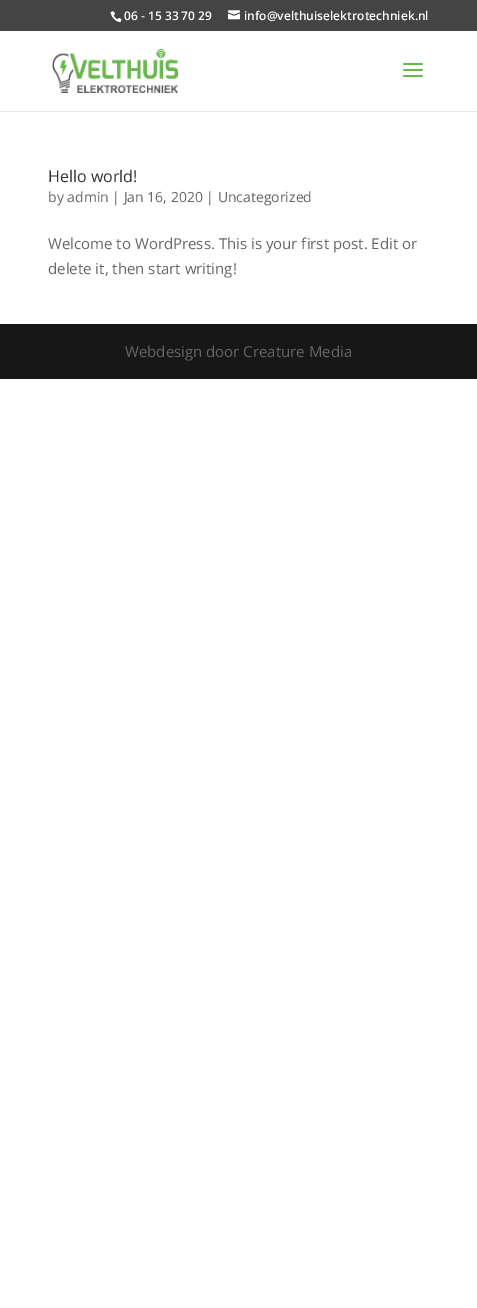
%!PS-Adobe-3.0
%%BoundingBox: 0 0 477 1308
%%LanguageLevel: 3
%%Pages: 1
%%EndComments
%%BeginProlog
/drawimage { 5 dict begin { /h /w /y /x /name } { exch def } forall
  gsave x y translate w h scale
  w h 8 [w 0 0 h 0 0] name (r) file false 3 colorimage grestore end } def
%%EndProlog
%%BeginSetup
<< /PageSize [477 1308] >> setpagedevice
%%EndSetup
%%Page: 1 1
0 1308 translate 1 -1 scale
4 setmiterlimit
1 setgray
0 0 477 1308 rectfill
0.267 setgray
0 0 477 31 rectfill
(images/1.raw) 110 11 12 12 drawimage
(images/2.raw) 228 10 12 10 drawimage
0.902 setgray
0 111 477 1 rectfill
(images/3.raw) 52 49 126 44 drawimage
(images/4.raw) 403 63 20 14 drawimage
0.09 setgray
0 324 477 55 rectfill
/OpenSans-SemiBold [12 0 0 -12 0 0] selectfont
1 setgray
124 20 moveto (06 - 15 33 70 29) show
244 20 moveto (info@velthuiselektrotechniek.nl) show
/OpenSans-Regular [16 0 0 -16 0 0] selectfont
0.2 setgray
48 182 moveto (Hello world!) show
/OpenSans-Regular [14 0 0 -14 0 0] selectfont
0.4 setgray
48 202 moveto (by admin | Jan 16, 2020 | Uncategorized) show
/OpenSans-Regular [15 0 0 -15 0 0] selectfont
48 249 moveto (Welcome to WordPress. This is your first post. Edit or) show
48 274 moveto (delete it, then start writing!) show
125 357 moveto (Webdesign door Creature Media) show
showpage
%%EOF
